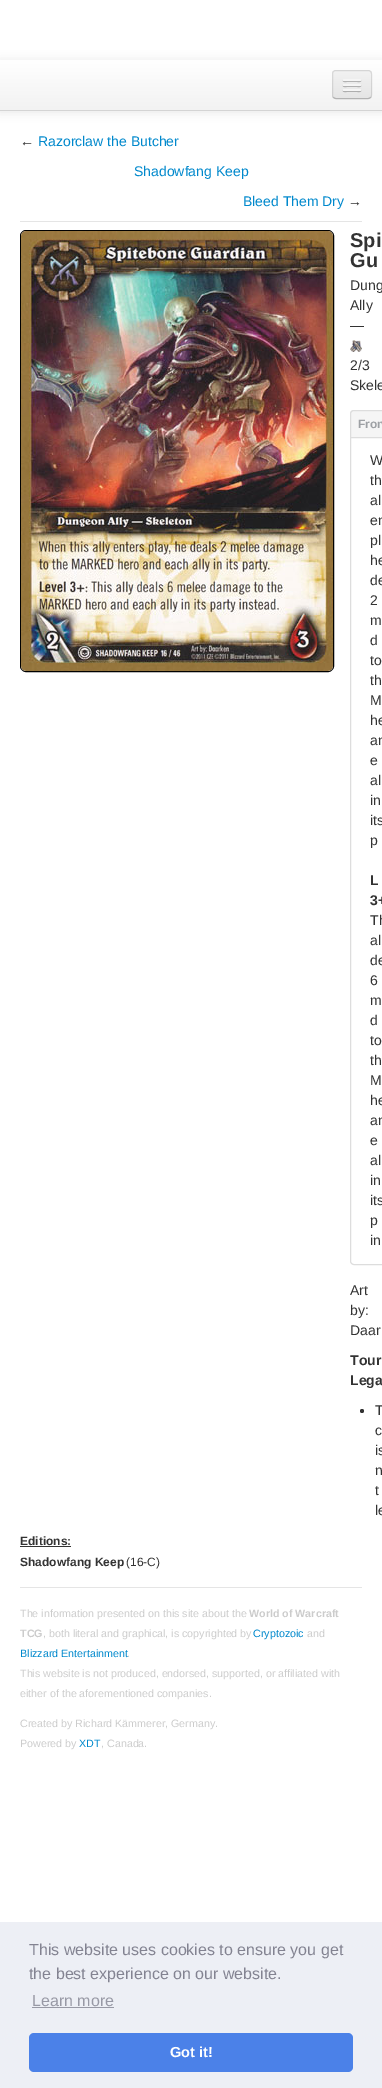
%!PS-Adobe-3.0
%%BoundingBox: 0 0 382 2088
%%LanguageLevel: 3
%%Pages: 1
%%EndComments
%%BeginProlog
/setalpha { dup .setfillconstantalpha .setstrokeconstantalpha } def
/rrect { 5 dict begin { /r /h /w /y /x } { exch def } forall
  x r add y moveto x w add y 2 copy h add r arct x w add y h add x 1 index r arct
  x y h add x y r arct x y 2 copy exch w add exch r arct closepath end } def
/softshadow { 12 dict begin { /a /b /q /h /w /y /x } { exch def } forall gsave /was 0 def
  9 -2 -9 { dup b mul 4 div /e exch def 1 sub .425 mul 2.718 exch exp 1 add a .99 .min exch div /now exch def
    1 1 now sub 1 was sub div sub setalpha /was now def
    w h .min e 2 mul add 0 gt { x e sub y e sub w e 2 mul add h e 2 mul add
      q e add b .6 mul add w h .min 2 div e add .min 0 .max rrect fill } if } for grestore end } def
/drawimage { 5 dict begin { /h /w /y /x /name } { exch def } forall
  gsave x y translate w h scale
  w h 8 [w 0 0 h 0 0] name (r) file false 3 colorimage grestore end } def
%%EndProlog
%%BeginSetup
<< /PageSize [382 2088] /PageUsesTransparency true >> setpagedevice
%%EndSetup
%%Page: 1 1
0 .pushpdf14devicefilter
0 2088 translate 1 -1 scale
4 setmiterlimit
1 setgray
0 0 382 2088 rectfill
0 setgray
0 61 382 51 0 5 0.1 softshadow
gsave newpath 0 60 moveto 382 60 lineto 382 110 lineto 0 110 lineto closepath clip newpath
<< /ShadingType 2 /ColorSpace /DeviceRGB /Coords [191 60 191 110] /Extend [true true] /Function << /FunctionType 2 /Domain [0 1] /C0 [1 1 1] /C1 [0.949 0.949 0.949] /N 1 >> >> shfill grestore
0.831 setgray
0 110 382 1 rectfill
0.929 setgray
332 70 40 29 4 rrect fill
gsave
332 70 40 29 4 rrect clip newpath
gsave newpath 332 71 moveto 372 71 lineto 372 98 lineto 332 98 lineto closepath clip newpath
<< /ShadingType 2 /ColorSpace /DeviceRGB /Coords [352 71 352 98] /Extend [true true] /Function << /FunctionType 2 /Domain [0 1] /C0 [0.949 0.949 0.949] /C1 [0.898 0.898 0.898] /N 1 >> >> shfill grestore
grestore
0.25 setalpha
0 setgray
newpath 370.5 97.5 moveto 370 98 369 98.5 368 98.5 curveto 336 98.5 lineto 335 98.5 334 98 333.5 97.5 curveto stroke
0.1 setalpha
newpath 333.5 97.5 moveto 333 97 332.5 96 332.5 95 curveto 332.5 74 lineto 332.5 73 333 72 333.5 71.5 curveto 334 71 335 70.5 336 70.5 curveto 368 70.5 lineto 369 70.5 370 71 370.5 71.5 curveto 371 72 371.5 73 371.5 74 curveto 371.5 95 lineto 371.5 96 371 97 370.5 97.5 curveto stroke
1 setalpha
0.698 setgray
newpath 343 80.5 moveto 342 82.5 346.5 82 346.5 82 curveto 357.5 82 lineto 357.5 82 362 82.5 361 80.5 curveto 360 81.5 353.5 81 352 81 curveto 350.5 81 344 81.5 343 80.5 curveto closepath fill
0.961 setgray
343 79 18 2 1 rrect fill
0.69 setgray
newpath 343 85.5 moveto 342 87.5 346.5 87 346.5 87 curveto 357.5 87 lineto 357.5 87 362 87.5 361 85.5 curveto 360 86.5 353.5 86 352 86 curveto 350.5 86 344 86.5 343 85.5 curveto closepath fill
0.961 setgray
343 84 18 2 1 rrect fill
0.682 setgray
newpath 343 90.5 moveto 342 92.5 346.5 92 346.5 92 curveto 357.5 92 lineto 357.5 92 362 92.5 361 90.5 curveto 360 91.5 353.5 91 352 91 curveto 350.5 91 344 91.5 343 90.5 curveto closepath fill
0.961 setgray
343 89 18 2 1 rrect fill
0.898 setgray
20 221 342 1 rectfill
0 setgray
20.5 230.5 313 441 5.5 rrect stroke
(images/1.raw) 21 231 312 440 drawimage
(images/2.raw) 350 340 12 12 drawimage
0.867 setgray
350.5 410.5 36 854 3.5 rrect stroke
0.961 setgray
newpath 354 410.5 moveto 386.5 410.5 lineto 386.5 434 lineto 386.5 436 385 437.5 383 437.5 curveto 350.5 437.5 lineto 350.5 414 lineto 350.5 412 352 410.5 354 410.5 curveto closepath gsave fill grestore
0.867 setgray
stroke
0.2 setgray
newpath 362 1411 2 0 360 arc closepath fill
20 1546 51 1 rectfill
0.898 setgray
20 1587 342 1 rectfill
0.929 0.937 0.961 setrgbcolor
0 1922 382 166 rectfill
0.596 0.6 0.647 setrgbcolor
32 2007 82 1 rectfill
0.294 0.506 0.91 setrgbcolor
29 2033 324 39 5 rrect fill
/LiberationSans-Regular [14 0 0 -14 0 0] selectfont
0.2 setgray
20 146 moveto (←) show
0 0.533 0.8 setrgbcolor
38 146 moveto (Razorclaw the Butcher) show
134 176 moveto (Shadowfang Keep) show
243 206 moveto (Bleed Them Dry) show
0.2 setgray
348 206 moveto (→) show
/LiberationSans-Bold [20 0 0 -20 0 0] selectfont
350 247 moveto (Spi) show
350 267 moveto (Gu) show
/LiberationSans-Regular [14 0 0 -14 0 0] selectfont
350 290 moveto (Dung) show
350 310 moveto (Ally) show
350 330 moveto (—) show
350 370 moveto (2/3) show
350 390 moveto (Skele) show
/LiberationSans-Bold [12 0 0 -12 0 0] selectfont
0.616 0.627 0.643 setrgbcolor
358 428 moveto (Fron) show
/LiberationSans-Regular [14 0 0 -14 0 0] selectfont
0.2 setgray
370 465 moveto (W) show
370 485 moveto (th) show
370 505 moveto (al) show
370 525 moveto (en) show
370 545 moveto (pl) show
370 565 moveto (he) show
370 585 moveto (de) show
370 605 moveto (2) show
370 625 moveto (m) show
370 645 moveto (d) show
370 665 moveto (to) show
370 685 moveto (th) show
370 705 moveto (M) show
370 725 moveto (he) show
370 745 moveto (an) show
370 765 moveto (e) show
370 785 moveto (al) show
370 805 moveto (in) show
370 825 moveto (its) show
370 845 moveto (p) show
/LiberationSans-Bold [14 0 0 -14 0 0] selectfont
370 885 moveto (L) show
370 905 moveto (3+) show
/LiberationSans-Regular [14 0 0 -14 0 0] selectfont
370 925 moveto (Th) show
370 945 moveto (al) show
370 965 moveto (de) show
370 985 moveto (6) show
370 1005 moveto (m) show
370 1025 moveto (d) show
370 1045 moveto (to) show
370 1065 moveto (th) show
370 1085 moveto (M) show
370 1105 moveto (he) show
370 1125 moveto (an) show
370 1145 moveto (e) show
370 1165 moveto (al) show
370 1185 moveto (in) show
370 1205 moveto (its) show
370 1225 moveto (p) show
370 1245 moveto (in) show
350 1295 moveto (Art) show
350 1315 moveto (by:) show
350 1335 moveto (Daar) show
/LiberationSans-Bold [14 0 0 -14 0 0] selectfont
350 1365 moveto (Tour) show
350 1385 moveto (Lega) show
/LiberationSans-Regular [14 0 0 -14 0 0] selectfont
375 1415 moveto (T) show
375 1435 moveto (c) show
375 1455 moveto (is) show
375 1475 moveto (n) show
375 1495 moveto (t) show
375 1515 moveto (le) show
/LiberationSans-Bold [12 0 0 -12 0 0] selectfont
20 1545 moveto (Editions:) show
20 1566 moveto (Shadowfang Keep) show
/LiberationSans-Regular [12 0 0 -12 0 0] selectfont
126 1566 moveto (\(16-C\)) show
/LiberationSans-Regular [10.7 0 0 -10.7 0 0] selectfont
0.8 setgray
20 1617 moveto (The information presented on this site about the) show
/LiberationSans-Bold [10.7 0 0 -10.7 0 0] selectfont
249 1617 moveto (World of Warcraft) show
20 1637 moveto (TCG) show
/LiberationSans-Regular [10.7 0 0 -10.7 0 0] selectfont
43 1637 moveto (, both literal and graphical, is copyrighted by) show
0 0.533 0.8 setrgbcolor
253 1637 moveto (Cryptozoic) show
0.8 setgray
307 1637 moveto (and) show
0 0.533 0.8 setrgbcolor
20 1657 moveto (Blizzard Entertainment) show
0.8 setgray
127 1657 moveto (.) show
20 1677 moveto (This website is not produced, endorsed, supported, or affiliated with) show
20 1697 moveto (either of the aforementioned companies.) show
20 1727 moveto (Created by Richard Kämmerer, Germany.) show
20 1747 moveto (Powered by) show
0 0.533 0.8 setrgbcolor
79 1747 moveto (XDT) show
0.8 setgray
101 1747 moveto (, Canada.) show
/LiberationSans-Regular [16 0 0 -16 0 0] selectfont
0.514 0.514 0.569 setrgbcolor
29 1955 moveto (This website uses cookies to ensure you get) show
29 1979 moveto (the best experience on our website.) show
0.596 0.6 0.647 setrgbcolor
32 2006 moveto (Learn more) show
/LiberationSans-Bold [14.5 0 0 -14.5 0 0] selectfont
1 setgray
170 2057 moveto (Got it!) show
.poppdf14devicefilter showpage
%%EOF
